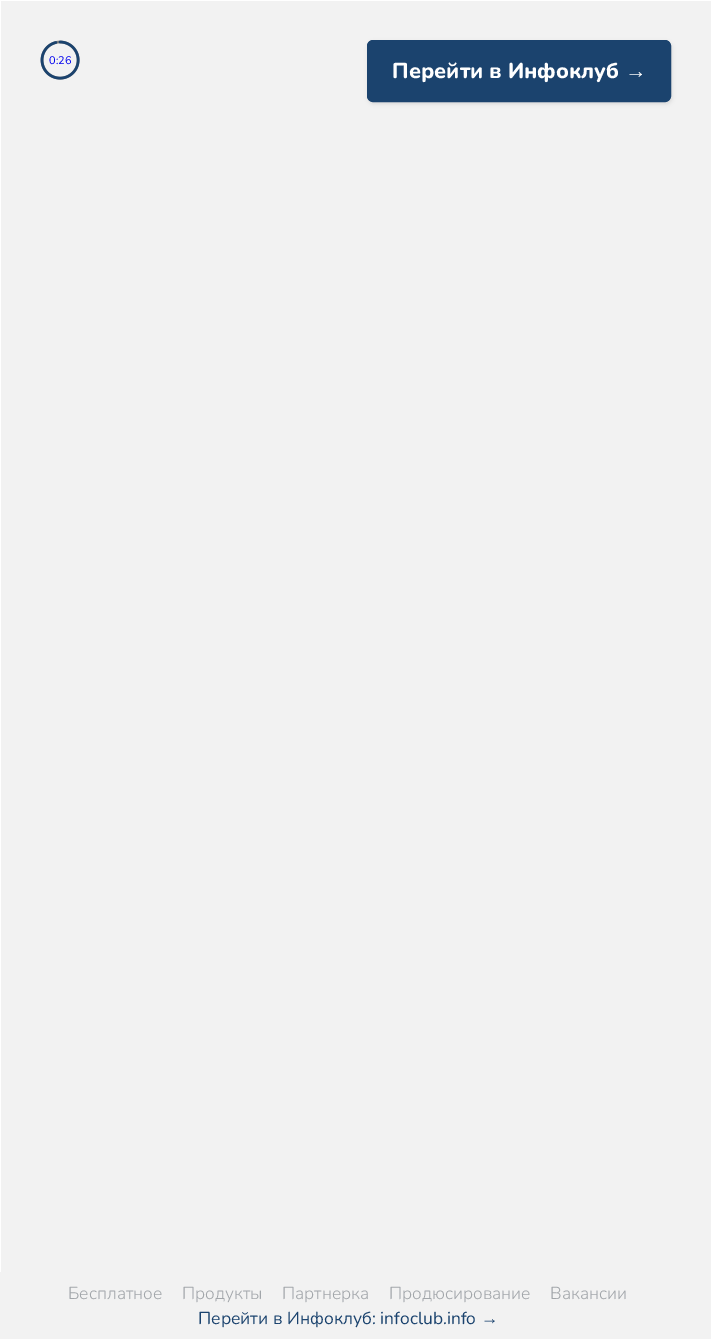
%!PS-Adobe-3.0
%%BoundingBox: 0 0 711 1339
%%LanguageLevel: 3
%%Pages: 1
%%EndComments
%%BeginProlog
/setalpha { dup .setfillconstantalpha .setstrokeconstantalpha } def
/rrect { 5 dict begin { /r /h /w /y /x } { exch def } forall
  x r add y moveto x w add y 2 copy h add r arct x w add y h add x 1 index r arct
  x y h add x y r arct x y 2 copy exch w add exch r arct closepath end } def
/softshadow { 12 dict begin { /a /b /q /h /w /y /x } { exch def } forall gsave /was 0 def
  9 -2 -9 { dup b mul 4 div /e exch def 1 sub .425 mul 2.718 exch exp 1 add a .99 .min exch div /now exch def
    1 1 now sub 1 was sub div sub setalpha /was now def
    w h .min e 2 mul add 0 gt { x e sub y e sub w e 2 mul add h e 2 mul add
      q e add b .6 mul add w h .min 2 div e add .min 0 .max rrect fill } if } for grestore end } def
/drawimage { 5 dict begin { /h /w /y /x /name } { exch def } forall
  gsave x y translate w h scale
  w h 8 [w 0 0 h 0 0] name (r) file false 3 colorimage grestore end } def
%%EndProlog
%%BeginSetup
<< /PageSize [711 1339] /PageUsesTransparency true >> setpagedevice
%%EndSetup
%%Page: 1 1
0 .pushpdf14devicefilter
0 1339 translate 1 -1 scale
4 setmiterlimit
1 setgray
0 0 711 1339 rectfill
0.949 setgray
1 1 710 1271 rectfill
(images/1.raw) 40 40 40 40 drawimage
0 setgray
368 42 304 62 6 2 0.1 softshadow
0.106 0.263 0.431 setrgbcolor
367.5 40.5 303 61 5.5 rrect gsave fill grestore
stroke
0.949 setgray
0 1272 711 67 rectfill
/Nunito-Regular [11 0 0 -11 0 0] selectfont
0 0 0.933 setrgbcolor
49 64 moveto (0:26) show
/Nunito-ExtraBold [21.5 0 0 -21.5 0 0] selectfont
1 setgray
392 78 moveto (Перейти в Инфоклуб) show
/LiberationSans-Bold [21.5 0 0 -21.5 0 0] selectfont
625 78 moveto (→) show
/Nunito-Light [17.4 0 0 -17.4 0 0] selectfont
0.635 0.651 0.667 setrgbcolor
68 1299 moveto (Бесплатное) show
182 1299 moveto (Продукты) show
282 1299 moveto (Партнерка) show
389 1299 moveto (Продюсирование) show
550 1299 moveto (Вакансии) show
/Nunito-Regular [17.4 0 0 -17.4 0 0] selectfont
0.106 0.263 0.431 setrgbcolor
198 1324 moveto (Перейти в Инфоклуб: infoclub.info) show
/LiberationSans-Regular [17.4 0 0 -17.4 0 0] selectfont
481 1324 moveto (→) show
.poppdf14devicefilter showpage
%%EOF
